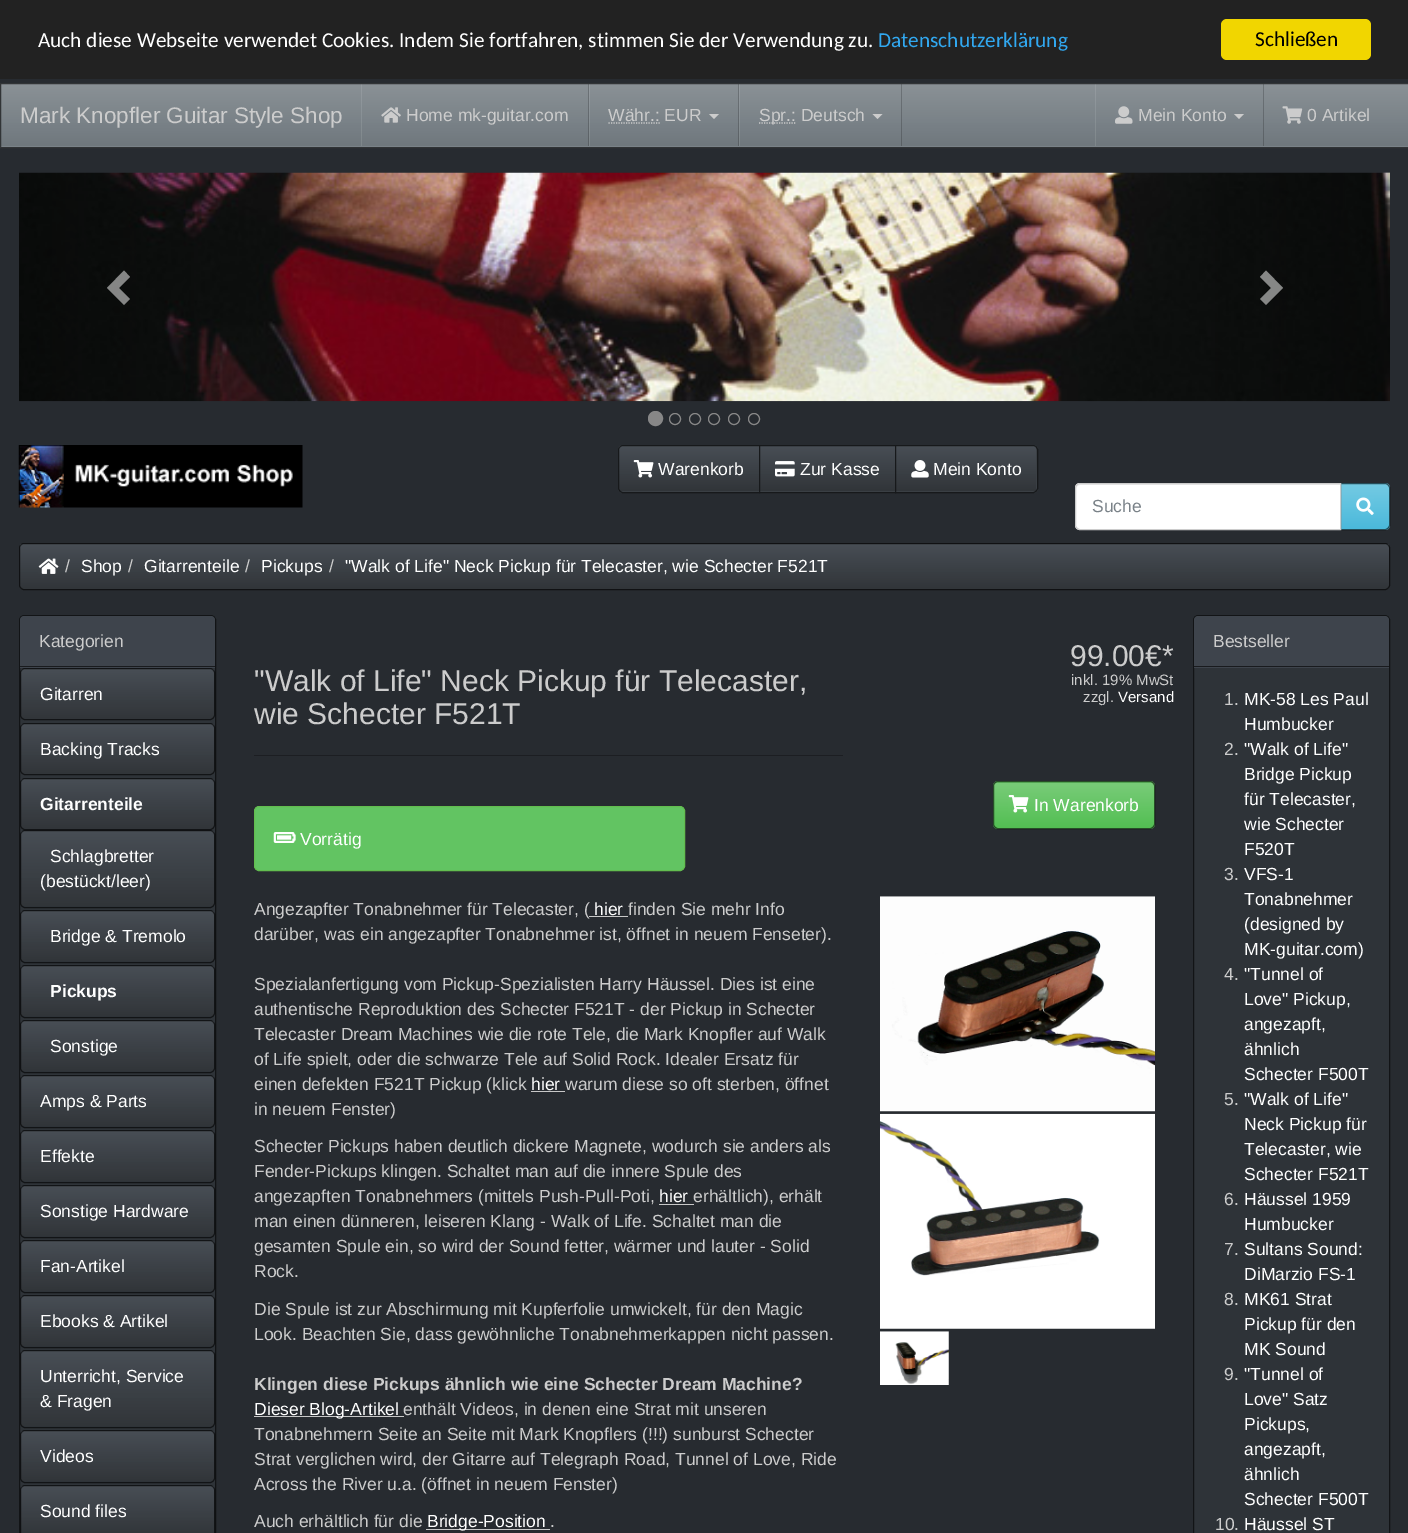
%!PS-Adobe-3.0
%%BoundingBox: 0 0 1408 1533
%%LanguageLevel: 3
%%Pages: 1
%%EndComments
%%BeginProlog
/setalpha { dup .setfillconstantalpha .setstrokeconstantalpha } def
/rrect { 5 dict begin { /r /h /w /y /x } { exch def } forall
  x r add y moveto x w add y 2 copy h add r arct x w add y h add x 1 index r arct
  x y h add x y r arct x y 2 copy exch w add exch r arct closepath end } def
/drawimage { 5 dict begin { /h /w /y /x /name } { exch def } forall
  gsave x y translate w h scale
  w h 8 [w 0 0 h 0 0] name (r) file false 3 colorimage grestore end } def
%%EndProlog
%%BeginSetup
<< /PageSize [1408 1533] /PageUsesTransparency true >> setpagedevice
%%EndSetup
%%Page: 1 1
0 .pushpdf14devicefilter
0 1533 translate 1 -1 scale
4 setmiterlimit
0.153 0.169 0.188 setrgbcolor
0 0 1408 1533 rectfill
0.133 setgray
0 0 1408 79 rectfill
0.945 0.839 0 setrgbcolor
1221 19 150 41 6 rrect fill
0.478 0.51 0.533 setrgbcolor
1 146 1407 1 rectfill
gsave newpath 1 84 moveto 1408 84 lineto 1408 146 lineto 1 146 lineto closepath clip newpath
<< /ShadingType 2 /ColorSpace /DeviceRGB /Coords [704 84 704 146] /Extend [true true] /Function << /FunctionType 3 /Domain [0 1] /Functions [<< /FunctionType 2 /Domain [0 1] /C0 [0.541 0.569 0.588] /C1 [0.478 0.51 0.533] /N 1 >> << /FunctionType 2 /Domain [0 1] /C0 [0.478 0.51 0.533] /C1 [0.439 0.471 0.49] /N 1 >>] /Bounds [0.6] /Encode [0 1 0 1] >> >> shfill grestore
gsave newpath 1095 84 moveto 1096 84 lineto 1096 146 lineto 1095 146 lineto closepath clip newpath
<< /ShadingType 2 /ColorSpace /DeviceRGB /Coords [704 84 704 146] /Extend [true true] /Function << /FunctionType 3 /Domain [0 1] /Functions [<< /FunctionType 2 /Domain [0 1] /C0 [0.588 0.612 0.631] /C1 [0.529 0.561 0.58] /N 1 >> << /FunctionType 2 /Domain [0 1] /C0 [0.529 0.561 0.58] /C1 [0.494 0.525 0.541] /N 1 >>] /Bounds [0.6] /Encode [0 1 0 1] >> >> shfill grestore
gsave newpath 1263 84 moveto 1264 84 lineto 1264 146 lineto 1263 146 lineto closepath clip newpath
<< /ShadingType 2 /ColorSpace /DeviceRGB /Coords [704 84 704 146] /Extend [true true] /Function << /FunctionType 3 /Domain [0 1] /Functions [<< /FunctionType 2 /Domain [0 1] /C0 [0.431 0.455 0.471] /C1 [0.384 0.408 0.427] /N 1 >> << /FunctionType 2 /Domain [0 1] /C0 [0.384 0.408 0.427] /C1 [0.353 0.376 0.392] /N 1 >>] /Bounds [0.6] /Encode [0 1 0 1] >> >> shfill grestore
gsave newpath 739 84 moveto 740 84 lineto 740 146 lineto 739 146 lineto closepath clip newpath
<< /ShadingType 2 /ColorSpace /DeviceRGB /Coords [704 84 704 146] /Extend [true true] /Function << /FunctionType 3 /Domain [0 1] /Functions [<< /FunctionType 2 /Domain [0 1] /C0 [0.588 0.612 0.631] /C1 [0.529 0.561 0.58] /N 1 >> << /FunctionType 2 /Domain [0 1] /C0 [0.529 0.561 0.58] /C1 [0.494 0.525 0.541] /N 1 >>] /Bounds [0.6] /Encode [0 1 0 1] >> >> shfill grestore
gsave newpath 901 84 moveto 902 84 lineto 902 146 lineto 901 146 lineto closepath clip newpath
<< /ShadingType 2 /ColorSpace /DeviceRGB /Coords [704 84 704 146] /Extend [true true] /Function << /FunctionType 3 /Domain [0 1] /Functions [<< /FunctionType 2 /Domain [0 1] /C0 [0.431 0.455 0.471] /C1 [0.384 0.408 0.427] /N 1 >> << /FunctionType 2 /Domain [0 1] /C0 [0.384 0.408 0.427] /C1 [0.353 0.376 0.392] /N 1 >>] /Bounds [0.6] /Encode [0 1 0 1] >> >> shfill grestore
gsave newpath 589 84 moveto 590 84 lineto 590 146 lineto 589 146 lineto closepath clip newpath
<< /ShadingType 2 /ColorSpace /DeviceRGB /Coords [704 84 704 146] /Extend [true true] /Function << /FunctionType 3 /Domain [0 1] /Functions [<< /FunctionType 2 /Domain [0 1] /C0 [0.588 0.612 0.631] /C1 [0.529 0.561 0.58] /N 1 >> << /FunctionType 2 /Domain [0 1] /C0 [0.529 0.561 0.58] /C1 [0.494 0.525 0.541] /N 1 >>] /Bounds [0.6] /Encode [0 1 0 1] >> >> shfill grestore
gsave newpath 738 84 moveto 739 84 lineto 739 146 lineto 738 146 lineto closepath clip newpath
<< /ShadingType 2 /ColorSpace /DeviceRGB /Coords [704 84 704 146] /Extend [true true] /Function << /FunctionType 3 /Domain [0 1] /Functions [<< /FunctionType 2 /Domain [0 1] /C0 [0.431 0.455 0.471] /C1 [0.384 0.408 0.427] /N 1 >> << /FunctionType 2 /Domain [0 1] /C0 [0.384 0.408 0.427] /C1 [0.353 0.376 0.392] /N 1 >>] /Bounds [0.6] /Encode [0 1 0 1] >> >> shfill grestore
gsave newpath 361 84 moveto 362 84 lineto 362 146 lineto 361 146 lineto closepath clip newpath
<< /ShadingType 2 /ColorSpace /DeviceRGB /Coords [704 84 704 146] /Extend [true true] /Function << /FunctionType 3 /Domain [0 1] /Functions [<< /FunctionType 2 /Domain [0 1] /C0 [0.588 0.612 0.631] /C1 [0.529 0.561 0.58] /N 1 >> << /FunctionType 2 /Domain [0 1] /C0 [0.529 0.561 0.58] /C1 [0.494 0.525 0.541] /N 1 >>] /Bounds [0.6] /Encode [0 1 0 1] >> >> shfill grestore
gsave newpath 588 84 moveto 589 84 lineto 589 146 lineto 588 146 lineto closepath clip newpath
<< /ShadingType 2 /ColorSpace /DeviceRGB /Coords [704 84 704 146] /Extend [true true] /Function << /FunctionType 3 /Domain [0 1] /Functions [<< /FunctionType 2 /Domain [0 1] /C0 [0.431 0.455 0.471] /C1 [0.384 0.408 0.427] /N 1 >> << /FunctionType 2 /Domain [0 1] /C0 [0.384 0.408 0.427] /C1 [0.353 0.376 0.392] /N 1 >>] /Bounds [0.6] /Encode [0 1 0 1] >> >> shfill grestore
0.192 0.204 0.212 setrgbcolor
0.5 83.5 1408 64 rectstroke
(images/1.raw) 381 107 20 16 drawimage
0.8 setgray
1.2 setlinewidth
[1.25 1.25] 0 setdash
newpath 608.5 123 moveto 660 123 lineto stroke
newpath 709 114 moveto 719 114 lineto 714 119 lineto closepath fill
newpath 759 123 moveto 796 123 lineto stroke
newpath 872.5 114 moveto 882.5 114 lineto 877.5 119 lineto closepath fill
(images/2.raw) 1115 106 18 18 drawimage
newpath 1234 114 moveto 1244 114 lineto 1239 119 lineto closepath fill
(images/3.raw) 1282 106 21 18 drawimage
(images/4.raw) 19 172 1371 230 drawimage
0.5 setalpha
1 setgray
newpath 130 277 moveto 119 288 lineto 130 299 lineto 124 305 lineto 107 288 lineto 124 270.5 lineto closepath fill
1 setalpha
0.525 0.529 0.525 setrgbcolor
newpath 1283 288 moveto 1266 305 lineto 1260 299 lineto 1271 288 lineto 1260 277 lineto 1266 270.5 lineto closepath fill
0.529 setgray
newpath 655.5 418.5 7 0 360 arc closepath gsave fill grestore
1 setlinewidth
[] 0 setdash
stroke
newpath 675 419 5.5 0 360 arc closepath stroke
newpath 695 419 5.5 0 360 arc closepath stroke
newpath 714 419 5.5 0 360 arc closepath stroke
newpath 734 419 5.5 0 360 arc closepath stroke
newpath 754 419 5.5 0 360 arc closepath stroke
(images/5.raw) 18 445 285 63 drawimage
0.227 0.247 0.267 setrgbcolor
newpath 623 445 moveto 760 445 lineto 760 493 lineto 623 493 lineto 620 493 618 491 618 488 curveto 618 450 lineto 618 447 620 445 623 445 curveto closepath fill
gsave newpath 619 446 moveto 759 446 lineto 759 491 lineto 619 491 lineto closepath clip newpath
<< /ShadingType 2 /ColorSpace /DeviceRGB /Coords [689 446 689 491] /Extend [true true] /Function << /FunctionType 3 /Domain [0 1] /Functions [<< /FunctionType 2 /Domain [0 1] /C0 [0.282 0.306 0.333] /C1 [0.227 0.247 0.267] /N 1 >> << /FunctionType 2 /Domain [0 1] /C0 [0.227 0.247 0.267] /C1 [0.192 0.208 0.224] /N 1 >>] /Bounds [0.6] /Encode [0 1 0 1] >> >> shfill grestore
0.6 setalpha
0 setgray
newpath 623 445.5 moveto 759.5 445.5 lineto 759.5 492.5 lineto 623 492.5 lineto 620.5 492.5 618.5 490.5 618.5 488 curveto 618.5 450 lineto 618.5 447.5 620.5 445.5 623 445.5 curveto closepath stroke
1 setalpha
(images/6.raw) 633 460 21 18 drawimage
0.227 0.247 0.267 setrgbcolor
760 491 135 1 rectfill
gsave newpath 760 446 moveto 895 446 lineto 895 491 lineto 760 491 lineto closepath clip newpath
<< /ShadingType 2 /ColorSpace /DeviceRGB /Coords [828 446 828 491] /Extend [true true] /Function << /FunctionType 3 /Domain [0 1] /Functions [<< /FunctionType 2 /Domain [0 1] /C0 [0.282 0.306 0.333] /C1 [0.227 0.247 0.267] /N 1 >> << /FunctionType 2 /Domain [0 1] /C0 [0.227 0.247 0.267] /C1 [0.192 0.208 0.224] /N 1 >>] /Bounds [0.6] /Encode [0 1 0 1] >> >> shfill grestore
0.09 0.098 0.106 setrgbcolor
759.5 445.5 136 47 rectstroke
(images/7.raw) 775 461 20 16 drawimage
0.227 0.247 0.267 setrgbcolor
newpath 895 445 moveto 1033 445 lineto 1036 445 1038 447 1038 450 curveto 1038 488 lineto 1038 491 1036 493 1033 493 curveto 895 493 lineto closepath fill
gsave newpath 896 446 moveto 1036 446 lineto 1036 491 lineto 896 491 lineto closepath clip newpath
<< /ShadingType 2 /ColorSpace /DeviceRGB /Coords [966 446 966 491] /Extend [true true] /Function << /FunctionType 3 /Domain [0 1] /Functions [<< /FunctionType 2 /Domain [0 1] /C0 [0.282 0.306 0.333] /C1 [0.227 0.247 0.267] /N 1 >> << /FunctionType 2 /Domain [0 1] /C0 [0.227 0.247 0.267] /C1 [0.192 0.208 0.224] /N 1 >>] /Bounds [0.6] /Encode [0 1 0 1] >> >> shfill grestore
0.6 setalpha
0 setgray
newpath 895.5 445.5 moveto 1033 445.5 lineto 1035.5 445.5 1037.5 447.5 1037.5 450 curveto 1037.5 488 lineto 1037.5 490.5 1035.5 492.5 1033 492.5 curveto 895.5 492.5 lineto closepath stroke
1 setalpha
(images/8.raw) 911 460 18 18 drawimage
0.357 0.753 0.871 setrgbcolor
newpath 1340 483 moveto 1385 483 lineto 1388 483 1390 485 1390 488 curveto 1390 525 lineto 1390 528 1388 530 1385 530 curveto 1340 530 lineto closepath fill
gsave newpath 1341 484 moveto 1389 484 lineto 1389 529 lineto 1341 529 lineto closepath clip newpath
<< /ShadingType 2 /ColorSpace /DeviceRGB /Coords [1365 484 1365 529] /Extend [true true] /Function << /FunctionType 3 /Domain [0 1] /Functions [<< /FunctionType 2 /Domain [0 1] /C0 [0.455 0.792 0.89] /C1 [0.357 0.753 0.871] /N 1 >> << /FunctionType 2 /Domain [0 1] /C0 [0.357 0.753 0.871] /C1 [0.29 0.725 0.859] /N 1 >>] /Bounds [0.6] /Encode [0 1 0 1] >> >> shfill grestore
0.6 setalpha
0 setgray
newpath 1340.5 483.5 moveto 1385 483.5 lineto 1387.5 483.5 1389.5 485.5 1389.5 488 curveto 1389.5 525 lineto 1389.5 527.5 1387.5 529.5 1385 529.5 curveto 1340.5 529.5 lineto closepath stroke
1 setalpha
1 setgray
newpath 1080 483 moveto 1341 483 lineto 1341 530 lineto 1080 530 lineto 1077 530 1075 528 1075 525 curveto 1075 488 lineto 1075 485 1077 483 1080 483 curveto closepath fill
0.925 setgray
newpath 1080 485 moveto 1340 485 lineto 1340 484 lineto 1080 484 lineto 1077 484 1076 486 1076 489 curveto 1076 487 1078 485 1080 485 curveto closepath fill
0.8 setgray
newpath 1080 483.5 moveto 1340.5 483.5 lineto 1340.5 529.5 lineto 1080 529.5 lineto 1077.5 529.5 1075.5 527.5 1075.5 525 curveto 1075.5 488 lineto 1075.5 485.5 1077.5 483.5 1080 483.5 curveto closepath stroke
(images/9.raw) 1356 497 18 18 drawimage
gsave
19 543 1371 47 5 rrect clip newpath
gsave newpath 20 544 moveto 1389 544 lineto 1389 589 lineto 20 589 lineto closepath clip newpath
<< /ShadingType 2 /ColorSpace /DeviceRGB /Coords [704 544 704 589] /Extend [true true] /Function << /FunctionType 3 /Domain [0 1] /Functions [<< /FunctionType 2 /Domain [0 1] /C0 [0.282 0.306 0.333] /C1 [0.227 0.247 0.267] /N 1 >> << /FunctionType 2 /Domain [0 1] /C0 [0.227 0.247 0.267] /C1 [0.192 0.208 0.224] /N 1 >>] /Bounds [0.6] /Encode [0 1 0 1] >> >> shfill grestore
grestore
0.6 setalpha
0 setgray
19.5 543.5 1370 46 4.5 rrect stroke
1 setalpha
(images/10.raw) 38 558 21 16 drawimage
0.18 0.2 0.22 setrgbcolor
19 615 197 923 5 rrect fill
0.6 setalpha
0 setgray
19.5 615.5 196 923 4.5 rrect stroke
1 setalpha
0.243 0.267 0.298 setrgbcolor
newpath 24 616 moveto 211 616 lineto 213 616 215 618 215 620 curveto 215 668 lineto 20 668 lineto 20 620 lineto 20 618 22 616 24 616 curveto closepath fill
0.098 0.106 0.118 setrgbcolor
20 666 195 1 rectfill
gsave
20 668 195 52 5 rrect clip newpath
gsave newpath 21 669 moveto 214 669 lineto 214 719 lineto 21 719 lineto closepath clip newpath
<< /ShadingType 2 /ColorSpace /DeviceRGB /Coords [118 669 118 719] /Extend [true true] /Function << /FunctionType 3 /Domain [0 1] /Functions [<< /FunctionType 2 /Domain [0 1] /C0 [0.282 0.306 0.333] /C1 [0.227 0.247 0.267] /N 1 >> << /FunctionType 2 /Domain [0 1] /C0 [0.227 0.247 0.267] /C1 [0.192 0.208 0.224] /N 1 >>] /Bounds [0.6] /Encode [0 1 0 1] >> >> shfill grestore
grestore
0.6 setalpha
0 setgray
20.5 668.5 194 51 4.5 rrect stroke
gsave
20 723 195 52 5 rrect clip newpath
1 setalpha
gsave newpath 21 724 moveto 214 724 lineto 214 774 lineto 21 774 lineto closepath clip newpath
<< /ShadingType 2 /ColorSpace /DeviceRGB /Coords [118 724 118 774] /Extend [true true] /Function << /FunctionType 3 /Domain [0 1] /Functions [<< /FunctionType 2 /Domain [0 1] /C0 [0.282 0.306 0.333] /C1 [0.227 0.247 0.267] /N 1 >> << /FunctionType 2 /Domain [0 1] /C0 [0.227 0.247 0.267] /C1 [0.192 0.208 0.224] /N 1 >>] /Bounds [0.6] /Encode [0 1 0 1] >> >> shfill grestore
grestore
20.5 723.5 194 51 4.5 rrect stroke
gsave
20 778 195 52 5 rrect clip newpath
1 setalpha
gsave newpath 21 779 moveto 214 779 lineto 214 829 lineto 21 829 lineto closepath clip newpath
<< /ShadingType 2 /ColorSpace /DeviceRGB /Coords [118 779 118 829] /Extend [true true] /Function << /FunctionType 3 /Domain [0 1] /Functions [<< /FunctionType 2 /Domain [0 1] /C0 [0.282 0.306 0.333] /C1 [0.227 0.247 0.267] /N 1 >> << /FunctionType 2 /Domain [0 1] /C0 [0.227 0.247 0.267] /C1 [0.192 0.208 0.224] /N 1 >>] /Bounds [0.6] /Encode [0 1 0 1] >> >> shfill grestore
grestore
20.5 778.5 194 51 4.5 rrect stroke
1 setalpha
gsave newpath 21 831 moveto 214 831 lineto 214 906 lineto 21 906 lineto closepath clip newpath
<< /ShadingType 2 /ColorSpace /DeviceRGB /Coords [118 831 118 906] /Extend [true true] /Function << /FunctionType 3 /Domain [0 1] /Functions [<< /FunctionType 2 /Domain [0 1] /C0 [0.282 0.306 0.333] /C1 [0.227 0.247 0.267] /N 1 >> << /FunctionType 2 /Domain [0 1] /C0 [0.227 0.247 0.267] /C1 [0.192 0.208 0.224] /N 1 >>] /Bounds [0.6] /Encode [0 1 0 1] >> >> shfill grestore
0.6 setalpha
20.5 830.5 194 77 4.5 rrect stroke
1 setalpha
gsave newpath 21 911 moveto 214 911 lineto 214 961 lineto 21 961 lineto closepath clip newpath
<< /ShadingType 2 /ColorSpace /DeviceRGB /Coords [118 911 118 961] /Extend [true true] /Function << /FunctionType 3 /Domain [0 1] /Functions [<< /FunctionType 2 /Domain [0 1] /C0 [0.282 0.306 0.333] /C1 [0.227 0.247 0.267] /N 1 >> << /FunctionType 2 /Domain [0 1] /C0 [0.227 0.247 0.267] /C1 [0.192 0.208 0.224] /N 1 >>] /Bounds [0.6] /Encode [0 1 0 1] >> >> shfill grestore
0.6 setalpha
20.5 910.5 194 52 4.5 rrect stroke
1 setalpha
gsave newpath 21 966 moveto 214 966 lineto 214 1016 lineto 21 1016 lineto closepath clip newpath
<< /ShadingType 2 /ColorSpace /DeviceRGB /Coords [118 966 118 1016] /Extend [true true] /Function << /FunctionType 3 /Domain [0 1] /Functions [<< /FunctionType 2 /Domain [0 1] /C0 [0.282 0.306 0.333] /C1 [0.227 0.247 0.267] /N 1 >> << /FunctionType 2 /Domain [0 1] /C0 [0.227 0.247 0.267] /C1 [0.192 0.208 0.224] /N 1 >>] /Bounds [0.6] /Encode [0 1 0 1] >> >> shfill grestore
0.6 setalpha
20.5 965.5 194 52 4.5 rrect stroke
1 setalpha
gsave newpath 21 1021 moveto 214 1021 lineto 214 1071 lineto 21 1071 lineto closepath clip newpath
<< /ShadingType 2 /ColorSpace /DeviceRGB /Coords [118 1021 118 1071] /Extend [true true] /Function << /FunctionType 3 /Domain [0 1] /Functions [<< /FunctionType 2 /Domain [0 1] /C0 [0.282 0.306 0.333] /C1 [0.227 0.247 0.267] /N 1 >> << /FunctionType 2 /Domain [0 1] /C0 [0.227 0.247 0.267] /C1 [0.192 0.208 0.224] /N 1 >>] /Bounds [0.6] /Encode [0 1 0 1] >> >> shfill grestore
0.6 setalpha
20.5 1020.5 194 52 4.5 rrect stroke
1 setalpha
gsave newpath 21 1076 moveto 214 1076 lineto 214 1126 lineto 21 1126 lineto closepath clip newpath
<< /ShadingType 2 /ColorSpace /DeviceRGB /Coords [118 1076 118 1126] /Extend [true true] /Function << /FunctionType 3 /Domain [0 1] /Functions [<< /FunctionType 2 /Domain [0 1] /C0 [0.282 0.306 0.333] /C1 [0.227 0.247 0.267] /N 1 >> << /FunctionType 2 /Domain [0 1] /C0 [0.227 0.247 0.267] /C1 [0.192 0.208 0.224] /N 1 >>] /Bounds [0.6] /Encode [0 1 0 1] >> >> shfill grestore
0.6 setalpha
20.5 1075.5 194 52 4.5 rrect stroke
1 setalpha
gsave newpath 21 1131 moveto 214 1131 lineto 214 1181 lineto 21 1181 lineto closepath clip newpath
<< /ShadingType 2 /ColorSpace /DeviceRGB /Coords [118 1131 118 1181] /Extend [true true] /Function << /FunctionType 3 /Domain [0 1] /Functions [<< /FunctionType 2 /Domain [0 1] /C0 [0.282 0.306 0.333] /C1 [0.227 0.247 0.267] /N 1 >> << /FunctionType 2 /Domain [0 1] /C0 [0.227 0.247 0.267] /C1 [0.192 0.208 0.224] /N 1 >>] /Bounds [0.6] /Encode [0 1 0 1] >> >> shfill grestore
0.6 setalpha
20.5 1130.5 194 52 4.5 rrect stroke
1 setalpha
gsave newpath 21 1186 moveto 214 1186 lineto 214 1236 lineto 21 1236 lineto closepath clip newpath
<< /ShadingType 2 /ColorSpace /DeviceRGB /Coords [118 1186 118 1236] /Extend [true true] /Function << /FunctionType 3 /Domain [0 1] /Functions [<< /FunctionType 2 /Domain [0 1] /C0 [0.282 0.306 0.333] /C1 [0.227 0.247 0.267] /N 1 >> << /FunctionType 2 /Domain [0 1] /C0 [0.227 0.247 0.267] /C1 [0.192 0.208 0.224] /N 1 >>] /Bounds [0.6] /Encode [0 1 0 1] >> >> shfill grestore
0.6 setalpha
20.5 1185.5 194 52 4.5 rrect stroke
1 setalpha
gsave newpath 21 1241 moveto 214 1241 lineto 214 1291 lineto 21 1291 lineto closepath clip newpath
<< /ShadingType 2 /ColorSpace /DeviceRGB /Coords [118 1241 118 1291] /Extend [true true] /Function << /FunctionType 3 /Domain [0 1] /Functions [<< /FunctionType 2 /Domain [0 1] /C0 [0.282 0.306 0.333] /C1 [0.227 0.247 0.267] /N 1 >> << /FunctionType 2 /Domain [0 1] /C0 [0.227 0.247 0.267] /C1 [0.192 0.208 0.224] /N 1 >>] /Bounds [0.6] /Encode [0 1 0 1] >> >> shfill grestore
0.6 setalpha
20.5 1240.5 194 52 4.5 rrect stroke
1 setalpha
gsave newpath 21 1296 moveto 214 1296 lineto 214 1346 lineto 21 1346 lineto closepath clip newpath
<< /ShadingType 2 /ColorSpace /DeviceRGB /Coords [118 1296 118 1346] /Extend [true true] /Function << /FunctionType 3 /Domain [0 1] /Functions [<< /FunctionType 2 /Domain [0 1] /C0 [0.282 0.306 0.333] /C1 [0.227 0.247 0.267] /N 1 >> << /FunctionType 2 /Domain [0 1] /C0 [0.227 0.247 0.267] /C1 [0.192 0.208 0.224] /N 1 >>] /Bounds [0.6] /Encode [0 1 0 1] >> >> shfill grestore
0.6 setalpha
20.5 1295.5 194 52 4.5 rrect stroke
1 setalpha
gsave newpath 21 1351 moveto 214 1351 lineto 214 1426 lineto 21 1426 lineto closepath clip newpath
<< /ShadingType 2 /ColorSpace /DeviceRGB /Coords [118 1351 118 1426] /Extend [true true] /Function << /FunctionType 3 /Domain [0 1] /Functions [<< /FunctionType 2 /Domain [0 1] /C0 [0.282 0.306 0.333] /C1 [0.227 0.247 0.267] /N 1 >> << /FunctionType 2 /Domain [0 1] /C0 [0.227 0.247 0.267] /C1 [0.192 0.208 0.224] /N 1 >>] /Bounds [0.6] /Encode [0 1 0 1] >> >> shfill grestore
0.6 setalpha
20.5 1350.5 194 77 4.5 rrect stroke
1 setalpha
gsave newpath 21 1431 moveto 214 1431 lineto 214 1481 lineto 21 1481 lineto closepath clip newpath
<< /ShadingType 2 /ColorSpace /DeviceRGB /Coords [118 1431 118 1481] /Extend [true true] /Function << /FunctionType 3 /Domain [0 1] /Functions [<< /FunctionType 2 /Domain [0 1] /C0 [0.282 0.306 0.333] /C1 [0.227 0.247 0.267] /N 1 >> << /FunctionType 2 /Domain [0 1] /C0 [0.227 0.247 0.267] /C1 [0.192 0.208 0.224] /N 1 >>] /Bounds [0.6] /Encode [0 1 0 1] >> >> shfill grestore
0.6 setalpha
20.5 1430.5 194 52 4.5 rrect stroke
1 setalpha
gsave newpath 21 1486 moveto 214 1486 lineto 214 1533 lineto 21 1533 lineto closepath clip newpath
<< /ShadingType 2 /ColorSpace /DeviceRGB /Coords [118 1486 118 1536] /Extend [true true] /Function << /FunctionType 3 /Domain [0 1] /Functions [<< /FunctionType 2 /Domain [0 1] /C0 [0.282 0.306 0.333] /C1 [0.227 0.247 0.267] /N 1 >> << /FunctionType 2 /Domain [0 1] /C0 [0.227 0.247 0.267] /C1 [0.192 0.208 0.224] /N 1 >>] /Bounds [0.6] /Encode [0 1 0 1] >> >> shfill grestore
0.6 setalpha
20.5 1485.5 194 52 4.5 rrect stroke
1 setalpha
0.11 0.118 0.133 setrgbcolor
254 755 589 1 rectfill
0.384 0.769 0.384 setrgbcolor
993 781 162 48 5 rrect fill
gsave newpath 994 783 moveto 1154 783 lineto 1154 828 lineto 994 828 lineto closepath clip newpath
<< /ShadingType 2 /ColorSpace /DeviceRGB /Coords [1074 783 1074 828] /Extend [true true] /Function << /FunctionType 3 /Domain [0 1] /Functions [<< /FunctionType 2 /Domain [0 1] /C0 [0.471 0.8 0.471] /C1 [0.384 0.769 0.384] /N 1 >> << /FunctionType 2 /Domain [0 1] /C0 [0.384 0.769 0.384] /C1 [0.325 0.745 0.325] /N 1 >>] /Bounds [0.6] /Encode [0 1 0 1] >> >> shfill grestore
0.6 setalpha
0 setgray
993.5 781.5 161 47 4.5 rrect stroke
1 setalpha
(images/11.raw) 1008 795 21 18 drawimage
0.384 0.769 0.384 setrgbcolor
254.5 806.5 430 64 4.5 rrect gsave fill grestore
0.384 0.741 0.31 setrgbcolor
stroke
(images/12.raw) 273 832 23 11 drawimage
0.784 setgray
589 916 39 1 rectfill
531 1091 34 1 rectfill
659 1204 35 1 rectfill
254 1416 150 1 rectfill
426 1529 124 1 rectfill
(images/13.raw) 880 896 275 216 drawimage
(images/14.raw) 880 1113 275 216 drawimage
(images/15.raw) 880 1331 69 54 drawimage
0.18 0.2 0.22 setrgbcolor
1193 615 197 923 5 rrect fill
0.6 setalpha
0 setgray
1193.5 615.5 196 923 4.5 rrect stroke
1 setalpha
0.243 0.267 0.298 setrgbcolor
newpath 1198 616 moveto 1385 616 lineto 1387 616 1389 618 1389 620 curveto 1389 668 lineto 1194 668 lineto 1194 620 lineto 1194 618 1196 616 1198 616 curveto closepath fill
0.098 0.106 0.118 setrgbcolor
1194 666 195 1 rectfill
/Carlito-Regular [21.25 0 0 -21.25 0 0] selectfont
1 setgray
38 47 moveto (Auch diese Webseite verwendet Cookies. Indem Sie fortfahren, stimmen Sie der Verwendung zu.) show
0.192 0.659 0.941 setrgbcolor
878 47 moveto (Datenschutzerklärung) show
0 setgray
1255 46 moveto (Schließen) show
/LiberationSans-Regular [22.5 0 0 -22.5 0 0] selectfont
0.8 setgray
20 123 moveto (Mark Knopfler Guitar Style Shop) show
/LiberationSans-Regular [17.5 0 0 -17.5 0 0] selectfont
406 121 moveto (Home mk-guitar.com) show
608 121 moveto (Währ.: EUR) show
759 121 moveto (Spr.: Deutsch) show
1138 121 moveto (Mein Konto) show
1307 121 moveto (0 Artikel) show
1 setgray
658 475 moveto (Warenkorb) show
800 475 moveto (Zur Kasse) show
933 475 moveto (Mein Konto) show
0.478 0.51 0.533 setrgbcolor
1092 512 moveto (Suche) show
0.8 setgray
65 572 moveto (/) show
1 setgray
81 572 moveto (Shop) show
0.8 setgray
128 572 moveto (/) show
1 setgray
144 572 moveto (Gitarrenteile) show
0.8 setgray
245 572 moveto (/) show
1 setgray
261 572 moveto (Pickups) show
0.8 setgray
329 572 moveto (/) show
1 setgray
345 572 moveto ("Walk of Life" Neck Pickup für Telecaster, wie Schecter F521T) show
0.8 setgray
39 647 moveto (Kategorien) show
1 setgray
40 700 moveto (Gitarren) show
40 755 moveto (Backing Tracks) show
/LiberationSans-Bold [17.5 0 0 -17.5 0 0] selectfont
40 810 moveto (Gitarrenteile) show
/LiberationSans-Regular [17.5 0 0 -17.5 0 0] selectfont
50 862 moveto (Schlagbretter) show
40 887 moveto (\(bestückt/leer\)) show
50 942 moveto (Bridge & Tremolo) show
/LiberationSans-Bold [17.5 0 0 -17.5 0 0] selectfont
50 997 moveto (Pickups) show
/LiberationSans-Regular [17.5 0 0 -17.5 0 0] selectfont
50 1052 moveto (Sonstige) show
40 1107 moveto (Amps & Parts) show
40 1162 moveto (Effekte) show
40 1217 moveto (Sonstige Hardware) show
40 1272 moveto (Fan-Artikel) show
40 1327 moveto (Ebooks & Artikel) show
40 1382 moveto (Unterricht, Service) show
40 1407 moveto (& Fragen) show
40 1462 moveto (Videos) show
40 1517 moveto (Sound files) show
/LiberationSans-Regular [30 0 0 -30 0 0] selectfont
0.8 setgray
254 691 moveto ("Walk of Life" Neck Pickup für Telecaster,) show
254 724 moveto (wie Schecter F521T) show
1070 666 moveto (99.00€*) show
/LiberationSans-Regular [15 0 0 -15 0 0] selectfont
1071 685 moveto (inkl. 19% MwSt) show
1083 702 moveto (zzgl.) show
1 setgray
1118 702 moveto (Versand) show
/LiberationSans-Regular [17.5 0 0 -17.5 0 0] selectfont
1034 811 moveto (In Warenkorb) show
300 845 moveto (Vorrätig) show
0.8 setgray
254 915 moveto (Angezapfter Tonabnehmer für Telecaster, \() show
1 setgray
594 915 moveto (hier) show
0.8 setgray
628 915 moveto (finden Sie mehr Info) show
254 940 moveto (darüber, was ein angezapfter Tonabnehmer ist, öffnet in neuem Fenseter\).) show
254 990 moveto (Spezialanfertigung vom Pickup-Spezialisten Harry Häussel. Dies ist eine) show
254 1015 moveto (authentische Reproduktion des Schecter F521T - der Pickup in Schecter) show
254 1040 moveto (Telecaster Dream Machines wie die rote Tele, die Mark Knopfler auf Walk) show
254 1065 moveto (of Life spielt, oder die schwarze Tele auf Solid Rock. Idealer Ersatz für) show
254 1090 moveto (einen defekten F521T Pickup \(klick) show
1 setgray
531 1090 moveto (hier) show
0.8 setgray
565 1090 moveto (warum diese so oft sterben, öffnet) show
254 1115 moveto (in neuem Fenster\)) show
254 1152 moveto (Schecter Pickups haben deutlich dickere Magnete, wodurch sie anders als) show
254 1177 moveto (Fender-Pickups klingen. Schaltet man auf die innere Spule des) show
254 1202 moveto (angezapften Tonabnehmers \(mittels Push-Pull-Poti,) show
1 setgray
659 1202 moveto (hier) show
0.8 setgray
693 1202 moveto (erhältlich\), erhält) show
254 1227 moveto (man einen dünneren, leiseren Klang - Walk of Life. Schaltet man die) show
254 1252 moveto (gesamten Spule ein, so wird der Sound fetter, wärmer und lauter - Solid) show
254 1277 moveto (Rock.) show
254 1315 moveto (Die Spule ist zur Abschirmung mit Kupferfolie umwickelt, für den Magic) show
254 1340 moveto (Look. Beachten Sie, dass gewöhnliche Tonabnehmerkappen nicht passen.) show
/LiberationSans-Bold [17.5 0 0 -17.5 0 0] selectfont
254 1390 moveto (Klingen diese Pickups ähnlich wie eine Schecter Dream Machine?) show
/LiberationSans-Regular [17.5 0 0 -17.5 0 0] selectfont
1 setgray
254 1415 moveto (Dieser Blog-Artikel) show
0.8 setgray
403 1415 moveto (enthält Videos, in denen eine Strat mit unseren) show
254 1440 moveto (Tonabnehmern Seite an Seite mit Mark Knopflers \(!!!\) sunburst Schecter) show
254 1465 moveto (Strat verglichen wird, der Gitarre auf Telegraph Road, Tunnel of Love, Ride) show
254 1490 moveto (Across the River u.a. \(öffnet in neuem Fenster\)) show
254 1527 moveto (Auch erhältlich für die) show
1 setgray
427 1527 moveto (Bridge-Position) show
0.8 setgray
550 1527 moveto (.) show
1213 647 moveto (Bestseller) show
1224 705 moveto (1.) show
1 setgray
1244 705 moveto (MK-58 Les Paul) show
1244 730 moveto (Humbucker) show
0.8 setgray
1224 755 moveto (2.) show
1 setgray
1244 755 moveto ("Walk of Life") show
1244 780 moveto (Bridge Pickup) show
1244 805 moveto (für Telecaster,) show
1244 830 moveto (wie Schecter) show
1244 855 moveto (F520T) show
0.8 setgray
1224 880 moveto (3.) show
1 setgray
1244 880 moveto (VFS-1) show
1244 905 moveto (Tonabnehmer) show
1244 930 moveto (\(designed by) show
1244 955 moveto (MK-guitar.com\)) show
0.8 setgray
1224 980 moveto (4.) show
1 setgray
1244 980 moveto ("Tunnel of) show
1244 1005 moveto (Love" Pickup,) show
1244 1030 moveto (angezapft,) show
1244 1055 moveto (ähnlich) show
1244 1080 moveto (Schecter F500T) show
0.8 setgray
1224 1105 moveto (5.) show
1 setgray
1244 1105 moveto ("Walk of Life") show
1244 1130 moveto (Neck Pickup für) show
1244 1155 moveto (Telecaster, wie) show
1244 1180 moveto (Schecter F521T) show
0.8 setgray
1224 1205 moveto (6.) show
1 setgray
1244 1205 moveto (Häussel 1959) show
1244 1230 moveto (Humbucker) show
0.8 setgray
1224 1255 moveto (7.) show
1 setgray
1244 1255 moveto (Sultans Sound:) show
1244 1280 moveto (DiMarzio FS-1) show
0.8 setgray
1224 1305 moveto (8.) show
1 setgray
1244 1305 moveto (MK61 Strat) show
1244 1330 moveto (Pickup für den) show
1244 1355 moveto (MK Sound) show
0.8 setgray
1224 1380 moveto (9.) show
1 setgray
1244 1380 moveto ("Tunnel of) show
1244 1405 moveto (Love" Satz) show
1244 1430 moveto (Pickups,) show
1244 1455 moveto (angezapft,) show
1244 1480 moveto (ähnlich) show
1244 1505 moveto (Schecter F500T) show
0.8 setgray
1215 1530 moveto (10.) show
1 setgray
1244 1530 moveto (Häussel ST) show
.poppdf14devicefilter showpage
%%EOF
